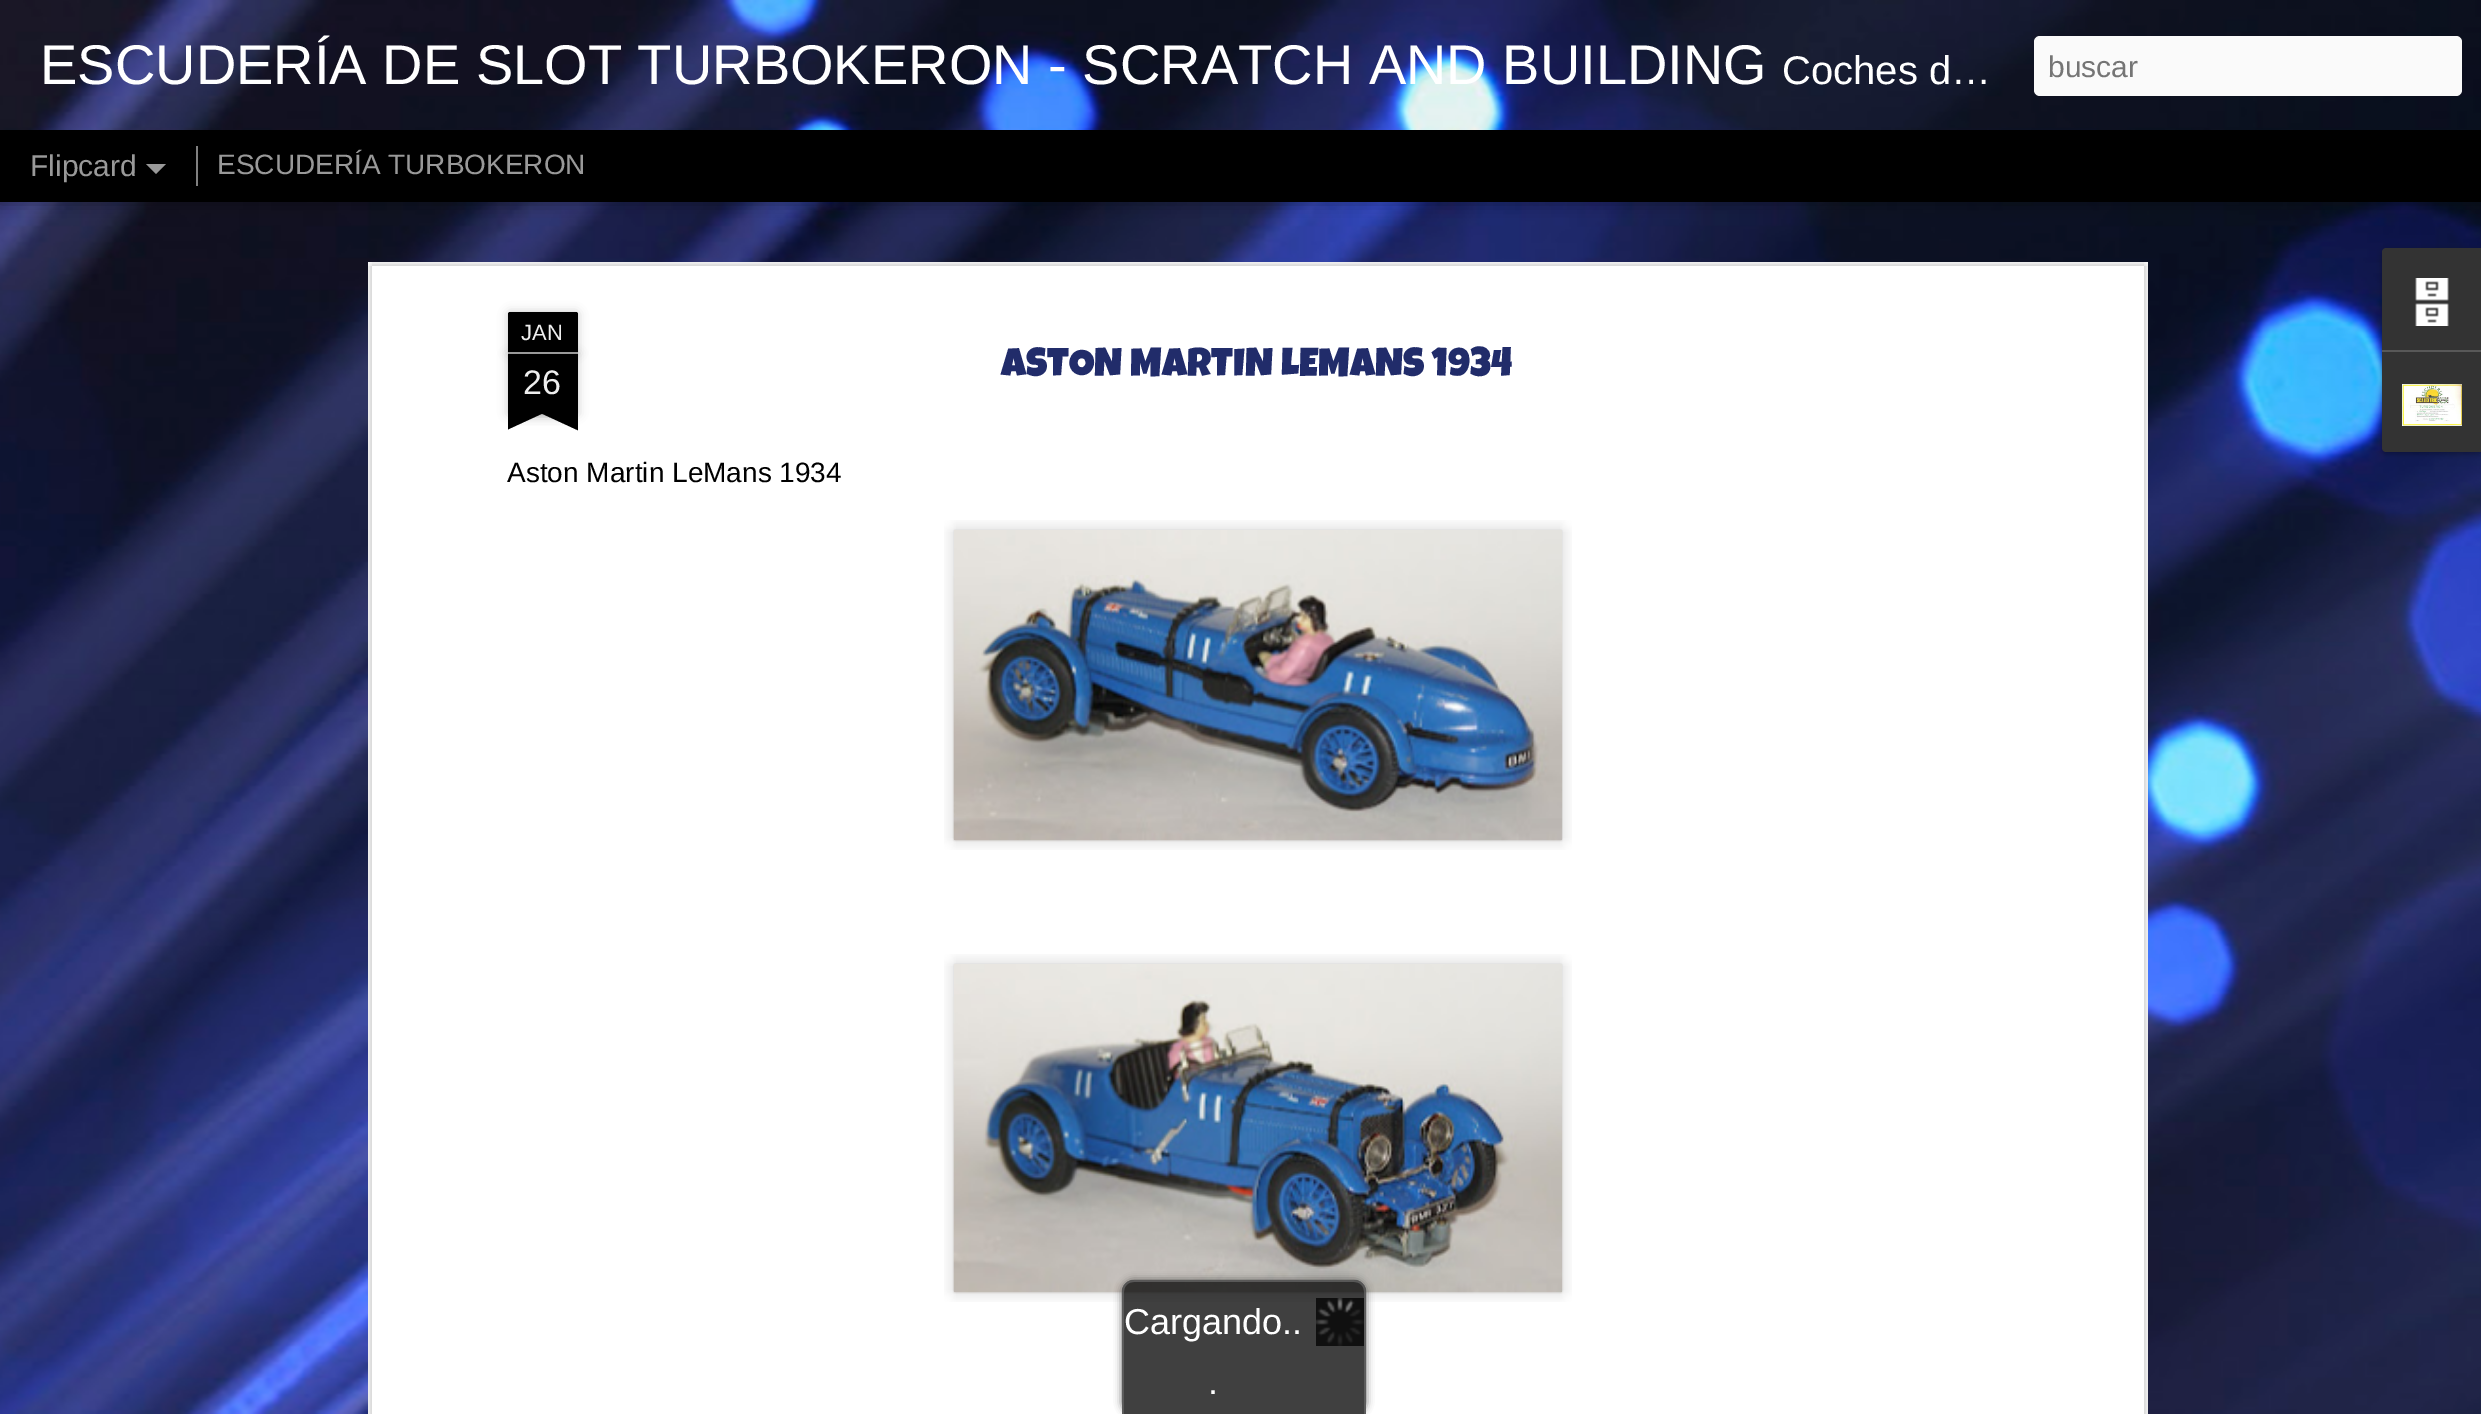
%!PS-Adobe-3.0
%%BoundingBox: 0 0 2481 1414
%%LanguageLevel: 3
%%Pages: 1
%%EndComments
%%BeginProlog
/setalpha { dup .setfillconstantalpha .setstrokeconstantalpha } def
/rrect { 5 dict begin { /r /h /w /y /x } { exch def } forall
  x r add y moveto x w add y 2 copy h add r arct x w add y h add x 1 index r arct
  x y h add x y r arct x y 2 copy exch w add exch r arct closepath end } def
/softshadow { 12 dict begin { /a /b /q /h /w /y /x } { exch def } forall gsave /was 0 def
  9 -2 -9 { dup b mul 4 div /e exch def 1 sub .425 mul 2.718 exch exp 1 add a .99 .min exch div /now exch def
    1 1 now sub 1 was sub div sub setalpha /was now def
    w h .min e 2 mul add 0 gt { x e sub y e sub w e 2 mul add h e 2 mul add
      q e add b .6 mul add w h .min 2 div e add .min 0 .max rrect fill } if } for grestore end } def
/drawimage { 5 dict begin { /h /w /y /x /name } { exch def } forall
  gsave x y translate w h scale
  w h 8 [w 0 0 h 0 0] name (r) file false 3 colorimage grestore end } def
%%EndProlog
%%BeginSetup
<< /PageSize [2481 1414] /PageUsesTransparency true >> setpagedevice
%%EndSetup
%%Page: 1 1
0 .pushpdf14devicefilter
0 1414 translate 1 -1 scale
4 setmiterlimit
0 setgray
0 0 2481 1414 rectfill
(images/2.raw) 0 202 2481 1212 drawimage
0 130 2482 70 0 8 0.5 softshadow
(images/1.raw) 0 0 2481 130 drawimage
0.98 setgray
2034 36 428 60 6 rrect fill
0.6 setgray
newpath 146 164 moveto 166 164 lineto 156 174 lineto closepath fill
0.502 setgray
196 146 2 40 rectfill
1 setgray
368 262 1780 1152 rectfill
(images/3.raw) 368 262 1780 1152 drawimage
0 setgray
508 354 70 60 0 5 0.2 softshadow
508 354 70 60 rectfill
508 312 70 42 2 5 0.2 softshadow
newpath 510 312 moveto 576 312 lineto 577 312 578 313 578 314 curveto 578 354 lineto 508 354 lineto 508 314 lineto 508 313 509 312 510 312 curveto closepath fill
0.6 setgray
508 352 70 2 rectfill
gsave
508 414 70 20 rectclip
0 setgray
490 394 100 20 0 5 0.2 softshadow
grestore
gsave
508 414 70 20 rectclip
0 setgray
newpath 489 416 moveto 580 374 lineto 589 392 lineto 498 434 lineto closepath fill
grestore
gsave
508 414 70 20 rectclip
0 setgray
496 394 100 20 0 5 0.2 softshadow
grestore
gsave
508 414 70 20 rectclip
0 setgray
newpath 504 374 moveto 595 416 lineto 586 434 lineto 495 392 lineto closepath fill
grestore
(images/4.raw) 944 520 628 330 drawimage
(images/5.raw) 952 576 611 266 drawimage
(images/6.raw) 944 954 628 348 drawimage
(images/7.raw) 952 997 612 297 drawimage
0 setgray
2382 250 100 204 4 3 0.3 softshadow
0.2 setgray
newpath 2386 248 moveto 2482 248 lineto 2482 350 lineto 2382 350 lineto 2382 252 lineto 2382 250 2384 248 2386 248 curveto closepath fill
(images/8.raw) 2415 278 34 48 drawimage
newpath 2382 350 moveto 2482 350 lineto 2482 452 lineto 2386 452 lineto 2384 452 2382 450 2382 448 curveto closepath fill
0.345 setgray
2382 350 99 2 rectfill
(images/9.raw) 2402 384 60 42 drawimage
gsave
newpath 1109 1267 moveto 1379 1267 lineto 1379 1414 lineto 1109 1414 lineto closepath 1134 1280 moveto 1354 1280 lineto 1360.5 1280 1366 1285.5 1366 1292 curveto 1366 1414 lineto 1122 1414 lineto 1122 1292 lineto 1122 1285.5 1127.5 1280 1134 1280 curveto closepath eoclip newpath
0.2 setgray
1122 1280 244 134 12 4 0.75 softshadow
grestore
0.75 setalpha
0 setgray
newpath 1134 1280 moveto 1354 1280 lineto 1360.5 1280 1366 1285.5 1366 1292 curveto 1366 1414 lineto 1122 1414 lineto 1122 1292 lineto 1122 1285.5 1127.5 1280 1134 1280 curveto closepath fill
0.4 setgray
newpath 1134 1280 moveto 1354 1280 lineto 1361 1280 1366 1285 1366 1292 curveto 1366 1414 lineto 1122 1414 lineto 1122 1292 lineto 1122 1285 1127 1280 1134 1280 curveto closepath 1134 1282 moveto 1354 1282 lineto 1360 1282 1364 1286 1364 1292 curveto 1364 1414 lineto 1124 1414 lineto 1124 1292 lineto 1124 1286 1128 1282 1134 1282 curveto closepath eofill
1 setalpha
(images/10.raw) 1316 1298 48 48 drawimage
/LiberationSans-Regular [56 0 0 -56 0 0] selectfont
1 setgray
40 84 moveto (ESCUDERÍA DE SLOT TURBOKERON - SCRATCH AND BUILDING) show
/LiberationSans-Regular [40 0 0 -40 0 0] selectfont
1782 84 moveto (Coches d…) show
/LiberationSans-Regular [30 0 0 -30 0 0] selectfont
0.459 setgray
2048 77 moveto (buscar) show
0.6 setgray
30 176 moveto (Flipcard) show
/LiberationSans-Regular [28 0 0 -28 0 0] selectfont
217 174 moveto (ESCUDERÍA TURBOKERON) show
/LiberationSans-Regular [22 0 0 -22 0 0] selectfont
0.933 setgray
521 340 moveto (JAN) show
/LiberationSans-Regular [34 0 0 -34 0 0] selectfont
523 394 moveto (26) show
/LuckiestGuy-Regular [40 0 0 -40 0 0] selectfont
0.129 0.173 0.416 setrgbcolor
1001 376 moveto (ASTON MARTIN LEMANS 1934) show
/LiberationSans-Regular [28 0 0 -28 0 0] selectfont
0 setgray
507 482 moveto (Aston Martin LeMans 1934) show
/LiberationSans-Regular [36 0 0 -36 0 0] selectfont
1 setgray
1124 1334 moveto (Cargando..) show
1208 1394 moveto (.) show
.poppdf14devicefilter showpage
%%EOF
